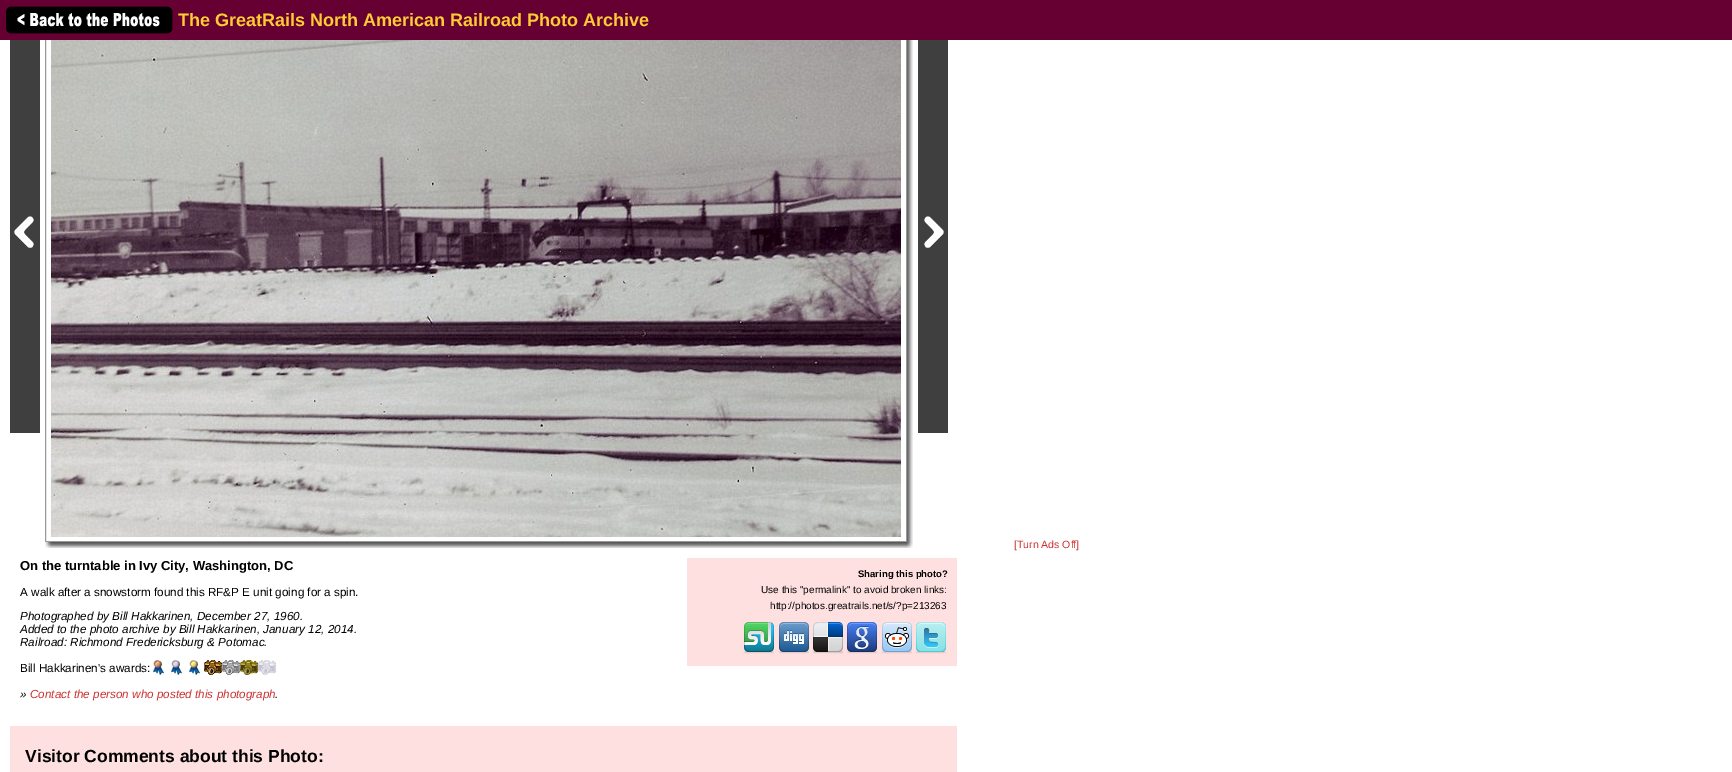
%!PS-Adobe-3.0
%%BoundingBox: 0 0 1732 772
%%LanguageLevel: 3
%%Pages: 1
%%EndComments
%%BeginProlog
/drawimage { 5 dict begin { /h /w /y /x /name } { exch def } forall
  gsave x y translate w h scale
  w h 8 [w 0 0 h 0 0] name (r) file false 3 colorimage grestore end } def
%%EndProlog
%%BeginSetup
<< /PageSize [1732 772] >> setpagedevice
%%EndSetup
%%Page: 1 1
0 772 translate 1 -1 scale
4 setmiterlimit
1 setgray
0 0 1732 772 rectfill
0.604 setgray
45.5 -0.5 861 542 rectstroke
0.4 0 0.2 setrgbcolor
0 0 1732 40 rectfill
(images/1.raw) 6 6 167 28 drawimage
(images/2.raw) 10 40 30 393 drawimage
(images/3.raw) 51 40 850 497 drawimage
(images/4.raw) 907 40 6 502 drawimage
(images/5.raw) 918 40 30 393 drawimage
(images/6.raw) 45 542 862 6 drawimage
(images/7.raw) 907 542 6 6 drawimage
(images/8.raw) 153 660 11 15 drawimage
(images/9.raw) 171 660 11 15 drawimage
(images/10.raw) 189 660 11 15 drawimage
(images/11.raw) 204 660 18 15 drawimage
(images/12.raw) 222 660 18 15 drawimage
(images/13.raw) 240 660 18 15 drawimage
(images/14.raw) 258 660 18 15 drawimage
1 0.878 0.878 setrgbcolor
687 558 270 108 rectfill
(images/15.raw) 744 622 30 32 drawimage
(images/16.raw) 779 622 30 32 drawimage
(images/17.raw) 812 622 32 32 drawimage
(images/18.raw) 847 622 30 32 drawimage
(images/19.raw) 882 622 30 32 drawimage
(images/20.raw) 916 622 30 32 drawimage
10 726 947 46 rectfill
/LiberationSans-Bold [18 0 0 -18 0 0] selectfont
1 0.8 0.2 setrgbcolor
178 26 moveto (The GreatRails North American Railroad Photo Archive) show
/LiberationSans-Regular [10.5 0 0 -10.5 0 0] selectfont
0.8 0.2 0.2 setrgbcolor
1014 548 moveto ([Turn Ads Off]) show
/LiberationSans-Bold [13 0 0 -13 0 0] selectfont
0 setgray
20 570 moveto (On the turntable in Ivy City, Washington, DC) show
/LiberationSans-Regular [11.7 0 0 -11.7 0 0] selectfont
20 596 moveto (A walk after a snowstorm found this RF&P E unit going for a spin.) show
/LiberationSans-Italic [11.7 0 0 -11.7 0 0] selectfont
20 620 moveto (Photographed by Bill Hakkarinen, December 27, 1960.) show
20 633 moveto (Added to the photo archive by Bill Hakkarinen, January 12, 2014.) show
20 646 moveto (Railroad: Richmond Fredericksburg & Potomac.) show
/LiberationSans-Regular [11.7 0 0 -11.7 0 0] selectfont
20 672 moveto (Bill Hakkarinen's awards:) show
/LiberationSans-Italic [11.7 0 0 -11.7 0 0] selectfont
20 698 moveto (») show
0.8 0.2 0.2 setrgbcolor
30 698 moveto (Contact the person who posted this photograph) show
0 setgray
275 698 moveto (.) show
/LiberationSans-Bold [9.5 0 0 -9.5 0 0] selectfont
858 577 moveto (Sharing this photo?) show
/LiberationSans-Regular [10 0 0 -10 0 0] selectfont
761 593 moveto (Use this "permalink" to avoid broken links:) show
770 609 moveto (http://photos.greatrails.net/s/?p=213263) show
/LiberationSans-Bold [17.5 0 0 -17.5 0 0] selectfont
25 762 moveto (Visitor Comments about this Photo:) show
showpage
%%EOF
